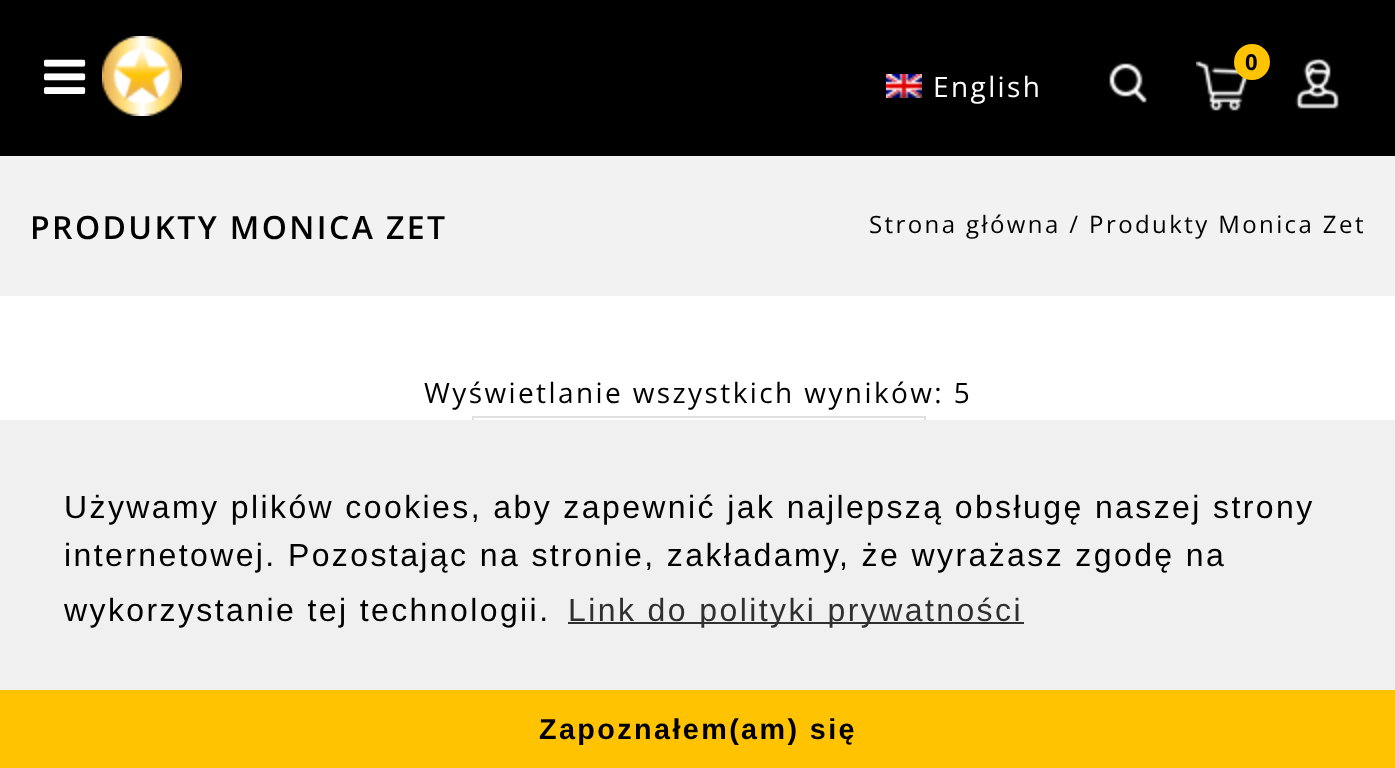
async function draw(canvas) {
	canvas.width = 1395;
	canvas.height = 768;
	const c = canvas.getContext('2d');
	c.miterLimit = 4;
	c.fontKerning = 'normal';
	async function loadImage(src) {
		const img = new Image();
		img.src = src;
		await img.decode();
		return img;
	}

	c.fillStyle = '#fff';
	c.fillRect(0, 0, 1395, 768);
	c.fillStyle = '#000';
	c.fillRect(0, 0, 1395, 156);
	c.drawImage(await loadImage('img1.png'), 44, 59, 42, 35);
	c.drawImage(await loadImage('img2.png'), 102, 36, 80, 80);
	c.drawImage(await loadImage('img3.png'), 886, 74, 36, 24);
	c.letterSpacing = '2.4px';
	c.font = '28px Open Sans';
	c.fillStyle = '#fff';
	c.fillText('English', 933, 97);
	c.drawImage(await loadImage('img4.png'), 1109, 63, 38, 40);
	c.drawImage(await loadImage('img5.png'), 1196, 61, 53, 50);
	c.fillStyle = '#ffc301';
	c.beginPath();
	c.arc(1252, 62, 18, 0, 2 * Math.PI);
	c.fill();
	c.font = 'bold 22px Open Sans';
	c.fillStyle = '#000';
	c.fillText('0', 1245, 70);
	c.drawImage(await loadImage('img6.png'), 1295, 58, 44, 51);
	c.fillStyle = '#f2f2f2';
	c.fillRect(0, 156, 1395, 140);
	c.font = '600 32px Open Sans';
	c.fillStyle = '#000';
	c.fillText('PRODUKTY MONICA ZET', 30, 239);
	c.font = '24px Open Sans';
	c.fillText('Strona główna / Produkty Monica Zet', 869, 233);
	c.font = '28px Open Sans';
	c.fillText('Wyświetlanie wszystkich wyników: 5', 424, 403);
	c.strokeStyle = '#e0e0e0';
	c.lineWidth = 2;
	c.strokeRect(473, 417, 452, 70);
	c.fillStyle = '#f0f0f0';
	c.fillRect(0, 420, 1395, 270);
	c.font = '32px Liberation Sans';
	c.fillStyle = '#000';
	for (const [text, x, y] of [
		['Używamy plików cookies, aby zapewnić jak najlepszą obsługę naszej strony', 64, 518],
		['internetowej. Pozostając na stronie, zakładamy, że wyrażasz zgodę na', 64, 566],
		['wykorzystanie tej technologii.', 64, 621],
	]) {
		c.fillText(text, x, y);
	}
	c.fillStyle = '#303030';
	c.fillRect(568, 622, 456, 2);
	c.fillText('Link do polityki prywatności', 568, 621);
	c.fillStyle = '#ffc301';
	c.fillRect(0, 690, 1395, 78);
	c.font = 'bold 28.75px Liberation Sans';
	c.fillStyle = '#000';
	c.fillText('Zapoznałem(am) się', 539, 739);
}

draw(document.querySelector('canvas'));
